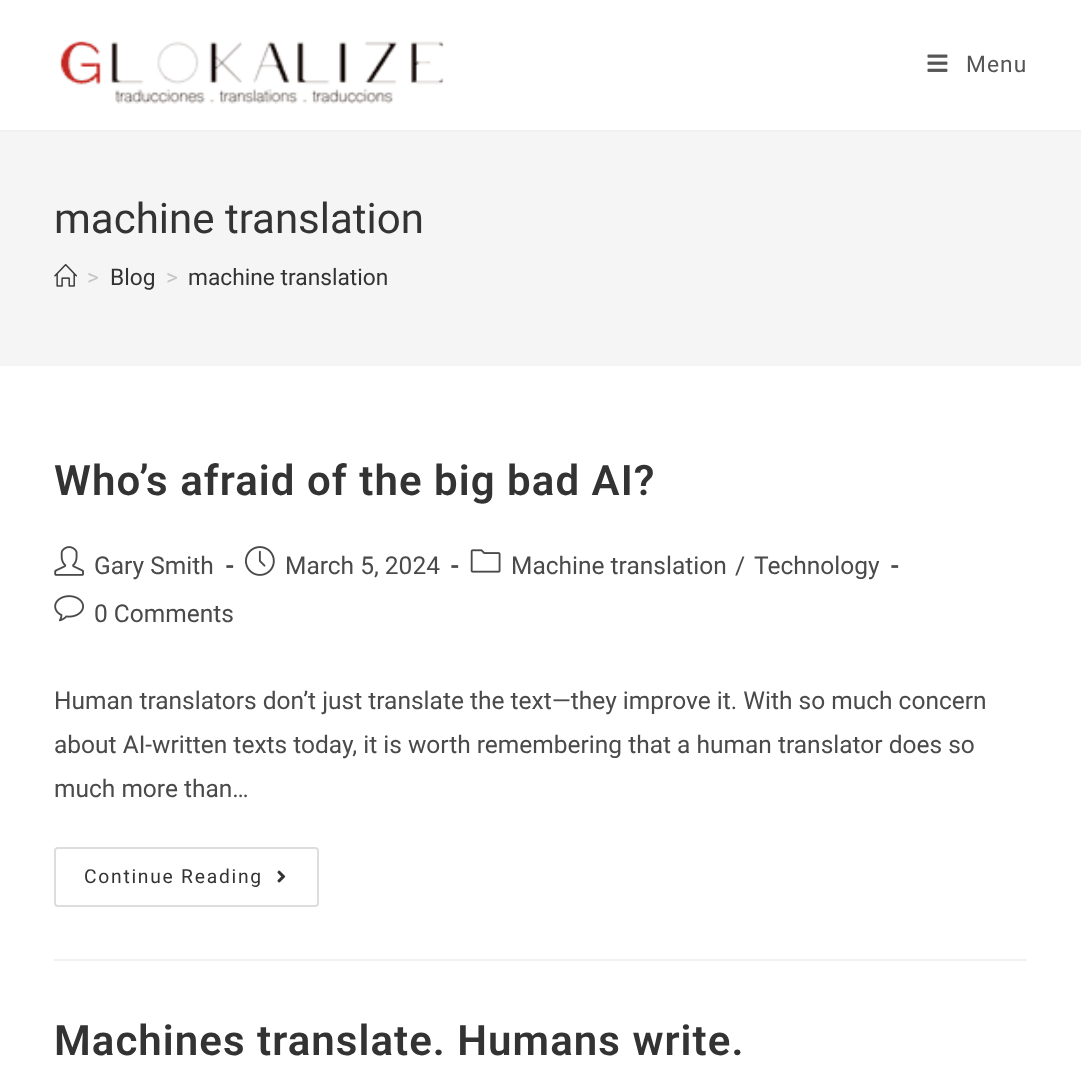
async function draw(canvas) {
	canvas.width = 1081;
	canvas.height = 1066;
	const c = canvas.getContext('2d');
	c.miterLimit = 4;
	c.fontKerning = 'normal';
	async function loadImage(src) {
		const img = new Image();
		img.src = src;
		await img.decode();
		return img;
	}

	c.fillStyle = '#fff';
	c.fillRect(0, 0, 1081, 1066);
	c.fillStyle = '#f1f1f1';
	c.fillRect(0, 130, 1081, 2);
	c.drawImage(await loadImage('img1.png'), 59, 40, 385, 64);
	c.drawImage(await loadImage('img2.png'), 927, 54, 21, 18);
	c.letterSpacing = '1.05px';
	c.font = '22.75px Roboto';
	c.fillStyle = '#555';
	c.fillText('Menu', 966, 72);
	c.fillStyle = '#f5f5f5';
	c.fillRect(0, 132, 1081, 234);
	c.letterSpacing = '0px';
	c.font = '42px Roboto';
	c.fillStyle = '#333';
	c.fillText('machine translation', 54, 233);
	c.drawImage(await loadImage('img3.png'), 54, 263, 23, 24);
	c.font = '22.75px Roboto';
	c.fillStyle = '#c6c6c6';
	c.fillText('>', 87, 285);
	c.fillStyle = '#333';
	c.fillText('Blog', 110, 285);
	c.fillStyle = '#c6c6c6';
	c.fillText('>', 166, 285);
	c.fillStyle = '#333';
	c.fillText('machine translation', 188, 285);
	c.fillStyle = '#f1f1f1';
	c.fillRect(54, 959, 973, 2);
	c.letterSpacing = '1.05px';
	c.font = '600 42px Roboto';
	c.fillStyle = '#333';
	c.fillText('Who’s afraid of the big bad AI?', 54, 495);
	c.drawImage(await loadImage('img4.png'), 54, 546, 30, 30);
	c.letterSpacing = '0px';
	c.font = '24.5px Roboto';
	c.fillStyle = '#4a4a4a';
	c.fillText('Gary Smith', 94, 574);
	c.font = 'bold 24.5px Roboto';
	c.fillText('-', 225, 574);
	c.drawImage(await loadImage('img5.png'), 245, 546, 30, 30);
	c.font = '24.5px Roboto';
	c.fillText('March 5, 2024', 285, 574);
	c.font = 'bold 24.5px Roboto';
	c.fillText('-', 450, 574);
	c.drawImage(await loadImage('img6.png'), 470, 549, 31, 24);
	c.font = '24.5px Roboto';
	for (const [text, x, y] of [
		['Machine translation', 511, 574],
		['/', 735, 574],
		['Technology', 754, 574],
	]) {
		c.fillText(text, x, y);
	}
	c.font = 'bold 24.5px Roboto';
	c.fillText('-', 890, 574);
	c.drawImage(await loadImage('img7.png'), 54, 595, 30, 27);
	c.font = '24.5px Roboto';
	for (const [text, x, y] of [
		['0 Comments', 94, 622],
		['Human translators don’t just translate the text—they improve it. With so much concern', 54, 709],
		['about AI-written texts today, it is worth remembering that a human translator does so', 54, 753],
		['much more than…', 54, 797],
	]) {
		c.fillText(text, x, y);
	}
	c.beginPath();
	c.roundRect(55, 848, 263, 58, 3);
	c.strokeStyle = '#ddd';
	c.lineWidth = 2;
	c.stroke();
	c.letterSpacing = '1.75px';
	c.font = '19.25px Roboto';
	c.fillStyle = '#333';
	c.fillText('Continue Reading', 84, 883);
	c.drawImage(await loadImage('img8.png'), 277, 870, 9, 13);
	c.letterSpacing = '1.05px';
	c.font = '600 42px Roboto';
	c.fillText('Machines translate. Humans write.', 54, 1055);
}

draw(document.querySelector('canvas'));
